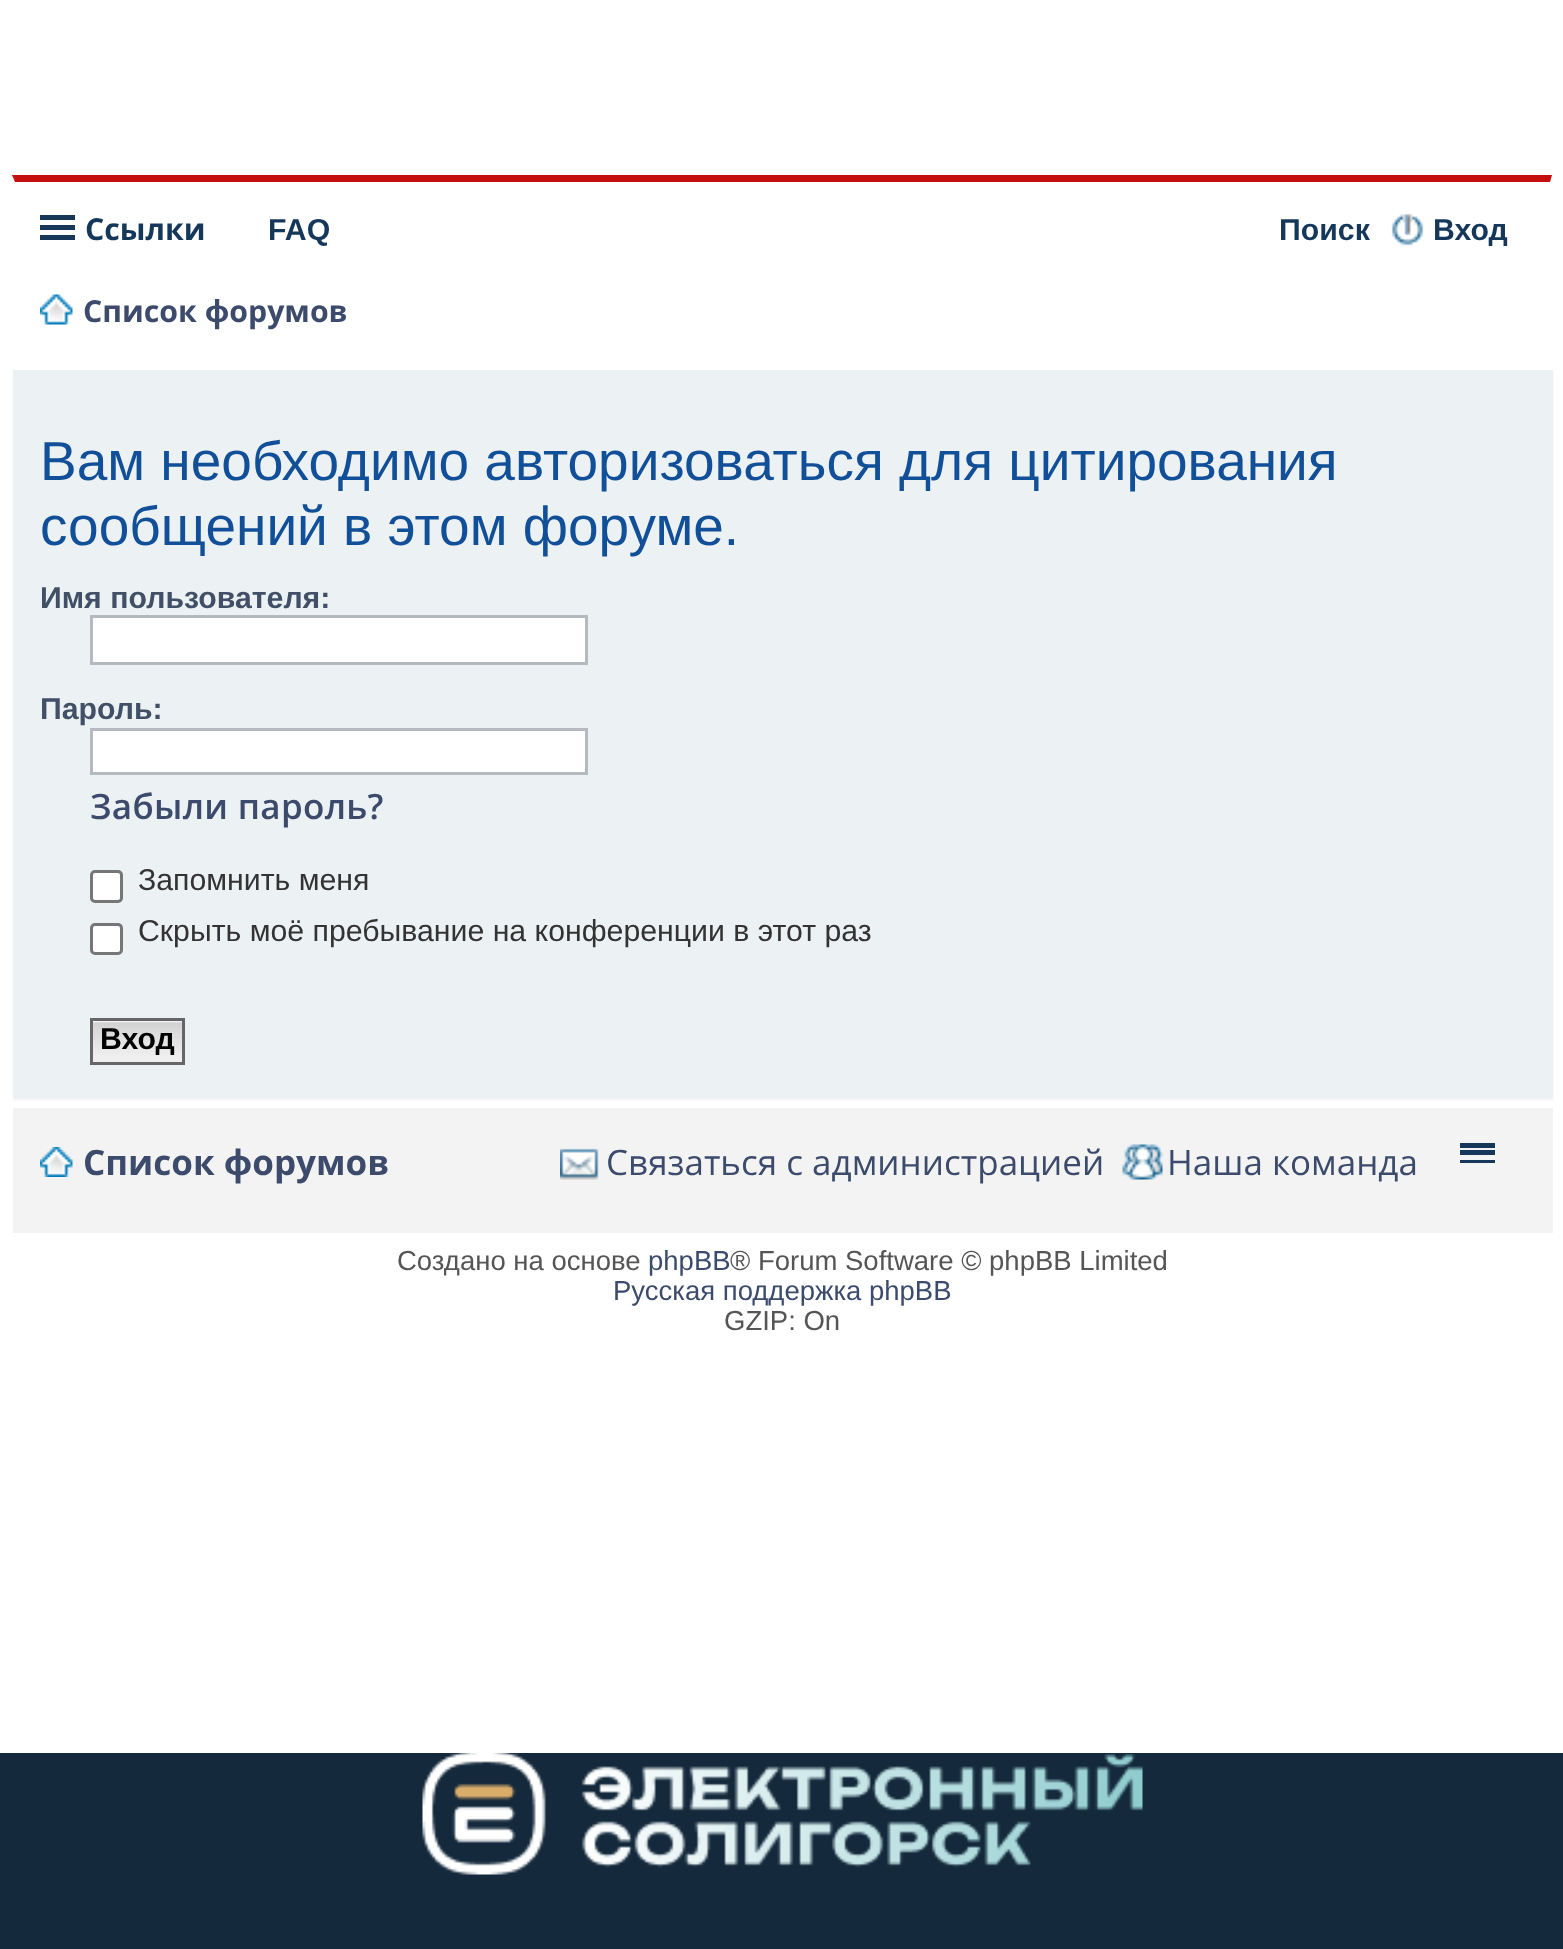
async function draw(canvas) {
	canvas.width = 1563;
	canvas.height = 1949;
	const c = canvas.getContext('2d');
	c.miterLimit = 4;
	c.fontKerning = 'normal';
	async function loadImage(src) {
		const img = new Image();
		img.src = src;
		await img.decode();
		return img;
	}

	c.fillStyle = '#fff';
	c.fillRect(0, 0, 1563, 1949);
	c.fillStyle = '#c50f0f';
	c.beginPath();
	c.moveTo(12, 175);
	c.lineTo(1552, 175);
	c.lineTo(1550, 182);
	c.lineTo(15, 182);
	c.closePath();
	c.fill();
	for (const [x, y, w, h, color] of [
		[40, 215, 35, 5, '#153759'],
		[40, 225, 35, 5, '#153759'],
		[40, 235, 35, 5, '#153759'],
	]) {
		c.fillStyle = color;
		c.fillRect(x, y, w, h);
	}
	c.font = 'bold 30.25px Open Sans';
	c.fillText('Ссылки', 85, 240);
	c.font = 'bold 30.25px Liberation Sans';
	c.fillText('FAQ', 268, 240);
	c.fillText('Поиск', 1279, 240);
	c.drawImage(await loadImage('img1.png'), 1391, 213, 33, 33);
	c.fillText('Вход', 1433, 240);
	c.drawImage(await loadImage('img2.png'), 40, 294, 33, 31);
	c.font = 'bold 30.25px Open Sans';
	c.fillStyle = '#3c4b6c';
	c.fillText('Список форумов', 83, 322);
	c.fillStyle = '#0000000d';
	c.filter = 'blur(1px)';
	c.beginPath();
	c.rect(13, 373, 1540, 727);
	c.fill();
	c.filter = 'none';
	c.fillStyle = '#ecf1f3';
	c.fillRect(13, 370, 1540, 728);
	c.font = '55px Liberation Sans';
	c.fillStyle = '#115098';
	c.fillText('Вам необходимо авторизоваться для цитирования', 40, 480);
	c.fillText('сообщений в этом форуме.', 40, 545);
	c.font = 'bold 30.25px Liberation Sans';
	c.fillStyle = '#425067';
	c.fillText('Имя пользователя:', 40, 608);
	c.fillStyle = '#fff';
	c.beginPath();
	c.rect(91.5, 616.5, 495, 47);
	c.fill();
	c.strokeStyle = '#b4bac0';
	c.lineWidth = 3;
	c.stroke();
	c.fillStyle = '#425067';
	c.fillText('Пароль:', 40, 719);
	c.fillStyle = '#fff';
	c.beginPath();
	c.rect(91.5, 729.5, 495, 44);
	c.fill();
	c.stroke();
	c.letterSpacing = '0.3px';
	c.font = '600 35px Open Sans';
	c.fillStyle = '#3c4b6c';
	c.fillText('Забыли пароль?', 90, 819);
	c.fillStyle = '#fff';
	c.beginPath();
	c.roundRect(91.5, 871.5, 30, 30, 3.5);
	c.fill();
	c.strokeStyle = '#767676';
	c.stroke();
	c.letterSpacing = '0px';
	c.font = '30.25px Liberation Sans';
	c.fillStyle = '#333';
	c.fillText('Запомнить меня', 138, 890);
	c.fillStyle = '#fff';
	c.beginPath();
	c.roundRect(91.5, 924.5, 30, 29, 3.5);
	c.fill();
	c.stroke();
	c.fillStyle = '#333';
	c.fillText('Скрыть моё пребывание на конференции в этот раз', 138, 941);
	c.drawImage(await loadImage('img3.png'), 93, 1021, 89, 41);
	c.strokeStyle = '#666';
	c.strokeRect(91.5, 1019.5, 92, 44);
	c.font = 'bold 30.25px Liberation Sans';
	c.fillStyle = '#000';
	c.fillText('Вход', 100, 1049);
	c.fillStyle = '#f3f3f3';
	c.fillRect(13, 1108, 1540, 125);
	c.drawImage(await loadImage('img4.png'), 40, 1147, 33, 30);
	c.font = 'bold 35px Open Sans';
	c.fillStyle = '#3c4b6c';
	c.fillText('Список форумов', 83, 1175);
	c.drawImage(await loadImage('img5.png'), 560, 1148, 39, 32);
	c.font = '35px Open Sans';
	c.fillText('Связаться с администрацией', 606, 1175);
	c.drawImage(await loadImage('img6.png'), 1122, 1144, 41, 36);
	c.fillText('Наша команда', 1167, 1175);
	for (const [x, y, w, h, color] of [
		[1460, 1143, 35, 5, '#153759'],
		[1460, 1150, 35, 5, '#153759'],
		[1460, 1160, 35, 3, '#153759'],
	]) {
		c.fillStyle = color;
		c.fillRect(x, y, w, h);
	}
	c.font = '27.5px Liberation Sans';
	c.fillStyle = '#555';
	c.fillText('Создано на основе', 397, 1270);
	c.fillStyle = '#3c4b6c';
	c.fillText('phpBB', 648, 1270);
	c.fillStyle = '#555';
	c.fillText('® Forum Software © phpBB Limited', 730, 1270);
	c.fillStyle = '#3c4b6c';
	c.fillText('Русская поддержка phpBB', 613, 1300);
	c.fillStyle = '#555';
	c.fillText('GZIP: On', 724, 1330);
	c.fillStyle = '#14293c';
	c.fillRect(0, 1753, 1563, 196);
	c.drawImage(await loadImage('img7.png'), 422, 1753, 721, 122);
}

draw(document.querySelector('canvas'));
